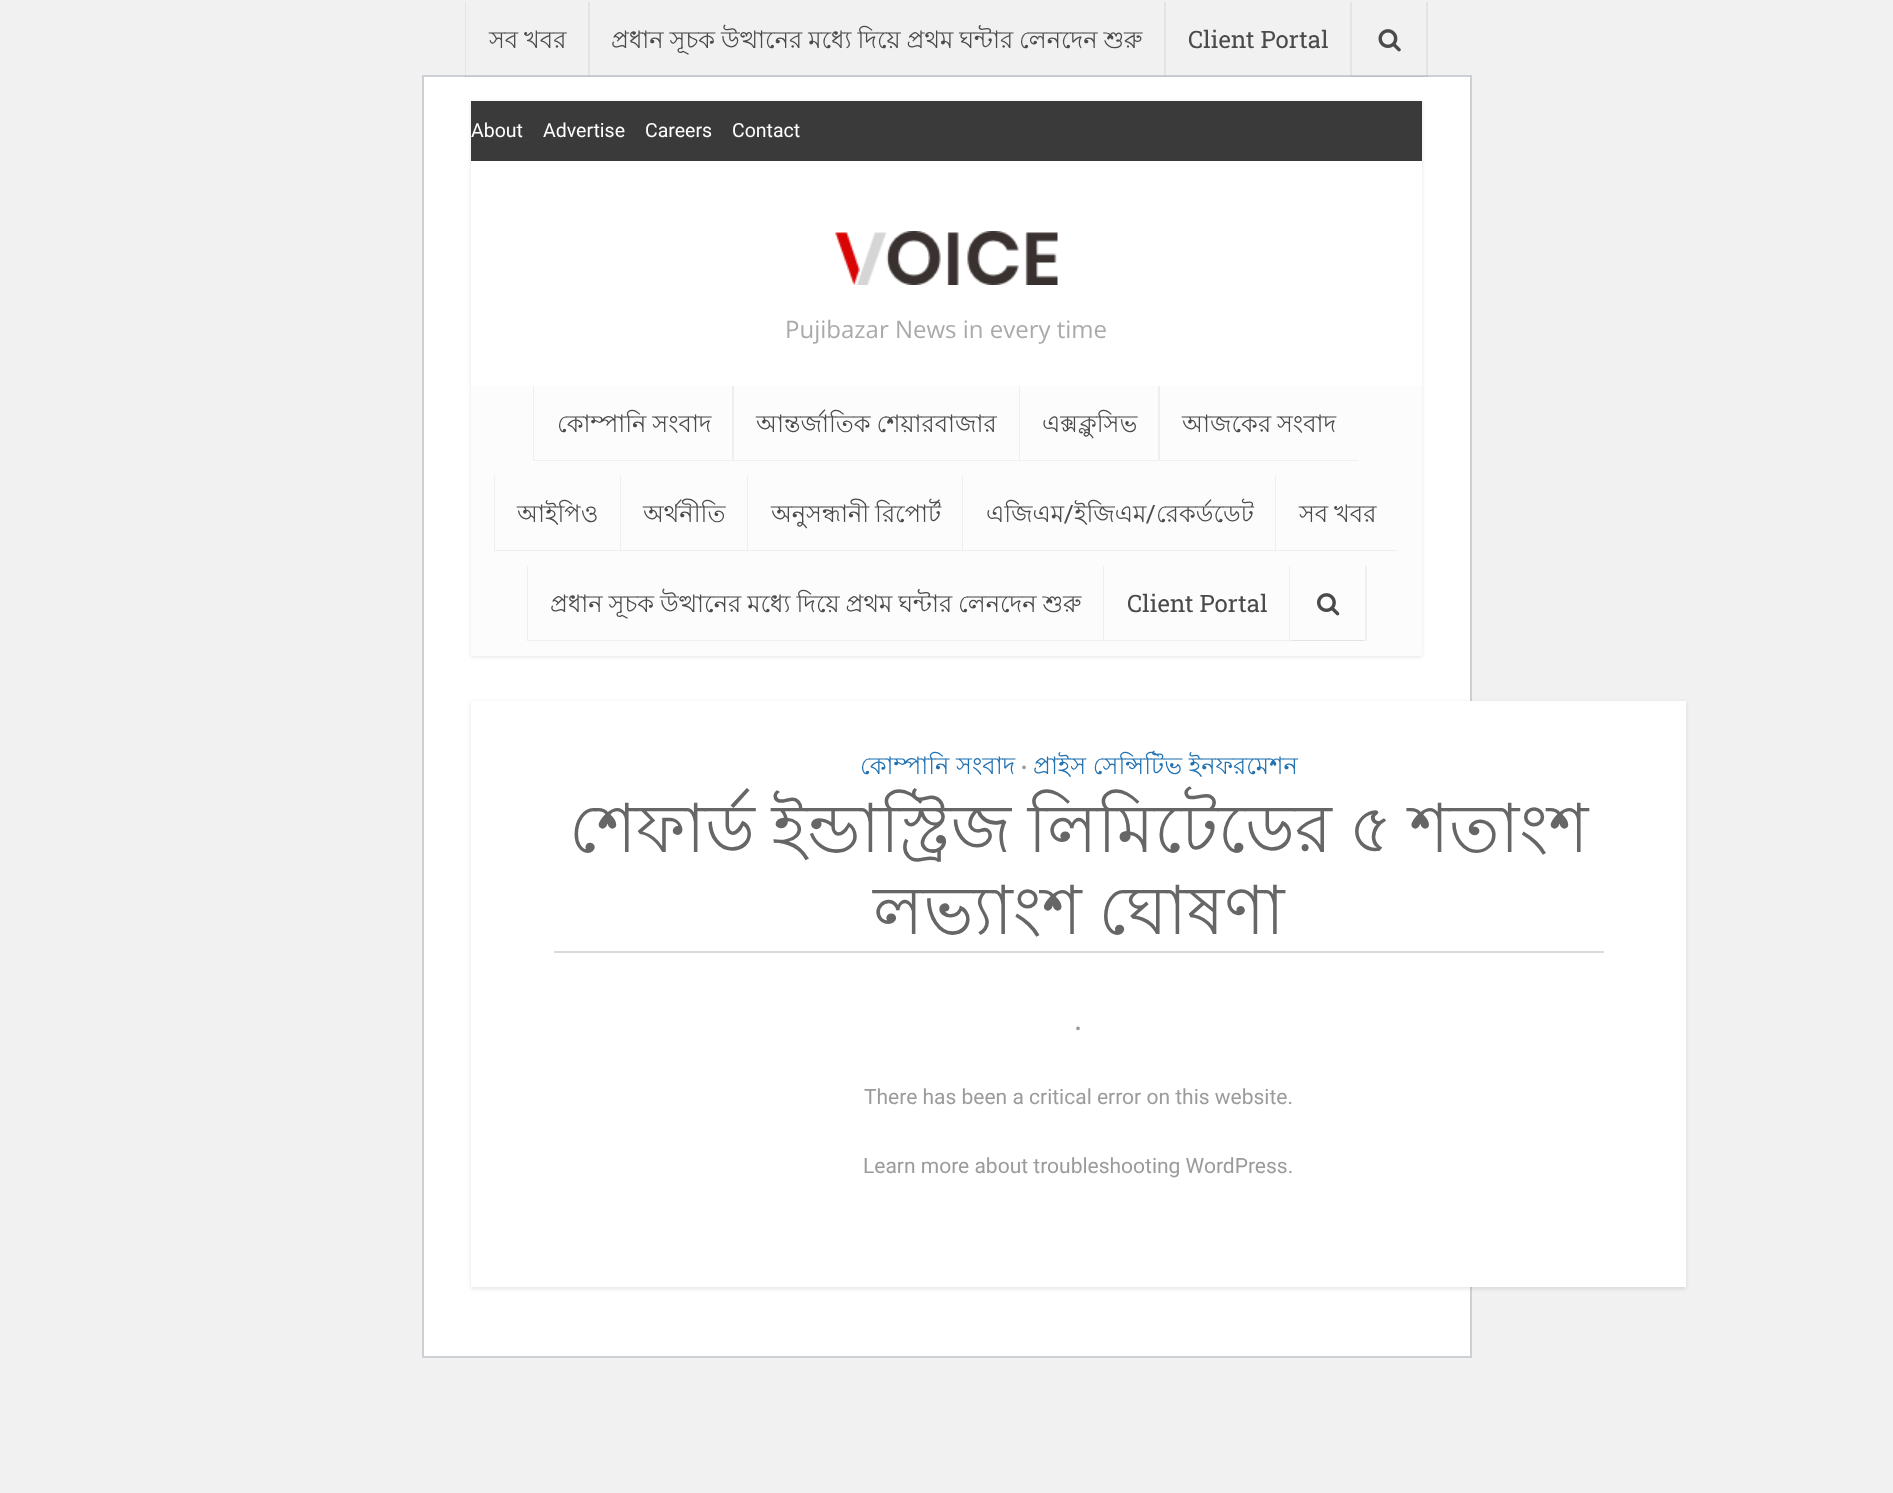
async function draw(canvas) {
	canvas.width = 1893;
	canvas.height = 1493;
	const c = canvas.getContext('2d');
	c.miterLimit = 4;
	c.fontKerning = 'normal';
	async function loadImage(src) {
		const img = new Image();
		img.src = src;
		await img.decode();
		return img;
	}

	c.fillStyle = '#f1f1f1';
	c.fillRect(0, 0, 1893, 1493);
	c.fillStyle = '#fff';
	c.beginPath();
	c.rect(423, 76, 1048, 1281);
	c.fill();
	c.strokeStyle = '#ccd0d4';
	c.lineWidth = 2;
	c.stroke();
	c.fillStyle = '#0000000d';
	c.beginPath();
	c.moveTo(465, 2);
	c.lineTo(465, 77);
	c.lineTo(588, 77);
	c.lineTo(588, 76);
	c.lineTo(466, 76);
	c.lineTo(466, 2);
	c.closePath();
	c.fill();
	c.wordSpacing = '-0.75px';
	c.font = '24px Lohit Bengali';
	c.fillStyle = '#4a4a4a';
	c.fillText('সব খবর', 489, 48);
	c.fillStyle = '#0000000d';
	c.beginPath();
	c.moveTo(588, 2);
	c.lineTo(588, 77);
	c.lineTo(1164, 77);
	c.lineTo(1164, 76);
	c.lineTo(590, 76);
	c.lineTo(590, 2);
	c.closePath();
	c.fill();
	c.fillStyle = '#4a4a4a';
	c.fillText('প্রধান সূচক উত্থানের মধ্যে দিয়ে প্রথম ঘন্টার লেনদেন শুরু', 611, 48);
	c.fillStyle = '#0000000d';
	c.beginPath();
	c.moveTo(1164, 2);
	c.lineTo(1164, 77);
	c.lineTo(1350, 77);
	c.lineTo(1350, 76);
	c.lineTo(1166, 76);
	c.lineTo(1166, 2);
	c.closePath();
	c.fill();
	c.wordSpacing = '0px';
	c.font = '24px Roboto Slab';
	c.fillStyle = '#4a4a4a';
	c.fillText('Client Portal', 1188, 48);
	c.fillStyle = '#0000000d';
	c.beginPath();
	c.moveTo(1353, 76);
	c.lineTo(1353, 77);
	c.lineTo(1428, 77);
	c.lineTo(1428, 2);
	c.lineTo(1426, 2);
	c.lineTo(1426, 76);
	c.closePath();
	c.fill();
	c.beginPath();
	c.moveTo(1350, 2);
	c.lineTo(1350, 77);
	c.lineTo(1425, 77);
	c.lineTo(1425, 76);
	c.lineTo(1352, 76);
	c.lineTo(1352, 2);
	c.closePath();
	c.fill();
	c.drawImage(await loadImage('img1.png'), 1378, 29, 23, 23);
	c.fillStyle = '#0000001a';
	c.filter = 'blur(2px)';
	c.beginPath();
	c.rect(471, 102, 951, 555);
	c.fill();
	c.filter = 'none';
	c.fillStyle = '#fff';
	c.fillRect(471, 161, 951, 225);
	c.fillStyle = '#3a3a3a';
	c.fillRect(471, 101, 951, 60);
	c.font = '19.5px Roboto';
	c.fillStyle = '#fff';
	for (const [text, x, y] of [
		['About', 471, 137],
		['Advertise', 543, 137],
		['Careers', 645, 137],
		['Contact', 732, 137],
	]) {
		c.fillText(text, x, y);
	}
	c.drawImage(await loadImage('img2.png'), 835, 231, 223, 54);
	c.font = '24px Open Sans';
	c.fillStyle = '#aaa';
	c.fillText('Pujibazar News in every time', 785, 338);
	c.fillStyle = '#fcfcfc';
	c.fillRect(471, 386, 951, 270);
	c.fillStyle = '#efefef';
	c.beginPath();
	c.moveTo(533, 386);
	c.lineTo(533, 461);
	c.lineTo(732, 461);
	c.lineTo(732, 460);
	c.lineTo(534, 460);
	c.lineTo(534, 386);
	c.closePath();
	c.fill();
	c.wordSpacing = '-0.75px';
	c.font = '24px Lohit Bengali';
	c.fillStyle = '#4a4a4a';
	c.fillText('কোম্পানি সংবাদ', 557, 432);
	c.fillStyle = '#efefef';
	c.beginPath();
	c.moveTo(732, 386);
	c.lineTo(732, 461);
	c.lineTo(1019, 461);
	c.lineTo(1019, 460);
	c.lineTo(734, 460);
	c.lineTo(734, 386);
	c.closePath();
	c.fill();
	c.fillStyle = '#4a4a4a';
	c.fillText('আন্তর্জাতিক শেয়ারবাজার', 756, 432);
	c.fillStyle = '#efefef';
	c.beginPath();
	c.moveTo(1019, 386);
	c.lineTo(1019, 461);
	c.lineTo(1158, 461);
	c.lineTo(1158, 460);
	c.lineTo(1020, 460);
	c.lineTo(1020, 386);
	c.closePath();
	c.fill();
	c.wordSpacing = '0px';
	c.fillStyle = '#4a4a4a';
	c.fillText('এক্সক্লুসিভ', 1042, 432);
	c.fillStyle = '#efefef';
	c.beginPath();
	c.moveTo(1158, 386);
	c.lineTo(1158, 461);
	c.lineTo(1358, 461);
	c.lineTo(1358, 460);
	c.lineTo(1160, 460);
	c.lineTo(1160, 386);
	c.closePath();
	c.fill();
	c.wordSpacing = '-0.75px';
	c.fillStyle = '#4a4a4a';
	c.fillText('আজকের সংবাদ', 1182, 432);
	c.fillStyle = '#efefef';
	c.beginPath();
	c.moveTo(494, 476);
	c.lineTo(494, 551);
	c.lineTo(620, 551);
	c.lineTo(620, 550);
	c.lineTo(495, 550);
	c.lineTo(495, 476);
	c.closePath();
	c.fill();
	c.wordSpacing = '0px';
	c.fillStyle = '#4a4a4a';
	c.fillText('আইপিও', 517, 522);
	c.fillStyle = '#efefef';
	c.beginPath();
	c.moveTo(620, 476);
	c.lineTo(620, 551);
	c.lineTo(747, 551);
	c.lineTo(747, 550);
	c.lineTo(621, 550);
	c.lineTo(621, 476);
	c.closePath();
	c.fill();
	c.fillStyle = '#4a4a4a';
	c.fillText('অর্থনীতি', 643, 522);
	c.fillStyle = '#efefef';
	c.beginPath();
	c.moveTo(747, 476);
	c.lineTo(747, 551);
	c.lineTo(962, 551);
	c.lineTo(962, 550);
	c.lineTo(748, 550);
	c.lineTo(748, 476);
	c.closePath();
	c.fill();
	c.wordSpacing = '-0.75px';
	c.fillStyle = '#4a4a4a';
	c.fillText('অনুসন্ধানী রিপোর্ট', 771, 522);
	c.fillStyle = '#efefef';
	c.beginPath();
	c.moveTo(962, 476);
	c.lineTo(962, 551);
	c.lineTo(1275, 551);
	c.lineTo(1275, 550);
	c.lineTo(963, 550);
	c.lineTo(963, 476);
	c.closePath();
	c.fill();
	c.wordSpacing = '0px';
	c.fillStyle = '#4a4a4a';
	c.fillText('এজিএম', 986, 522);
	c.font = '24px Roboto Slab';
	c.fillText('/', 1064, 522);
	c.font = '24px Lohit Bengali';
	c.fillText('ইজিএম', 1074, 522);
	c.font = '24px Roboto Slab';
	c.fillText('/', 1146, 522);
	c.font = '24px Lohit Bengali';
	c.fillText('রেকর্ডডেট', 1156, 522);
	c.fillStyle = '#efefef';
	c.beginPath();
	c.moveTo(1275, 476);
	c.lineTo(1275, 551);
	c.lineTo(1397, 551);
	c.lineTo(1397, 550);
	c.lineTo(1276, 550);
	c.lineTo(1276, 476);
	c.closePath();
	c.fill();
	c.wordSpacing = '-0.75px';
	c.fillStyle = '#4a4a4a';
	c.fillText('সব খবর', 1299, 522);
	c.fillStyle = '#efefef';
	c.beginPath();
	c.moveTo(527, 566);
	c.lineTo(527, 641);
	c.lineTo(1103, 641);
	c.lineTo(1103, 640);
	c.lineTo(528, 640);
	c.lineTo(528, 566);
	c.closePath();
	c.fill();
	c.fillStyle = '#4a4a4a';
	c.fillText('প্রধান সূচক উত্থানের মধ্যে দিয়ে প্রথম ঘন্টার লেনদেন শুরু', 550, 612);
	c.fillStyle = '#efefef';
	c.beginPath();
	c.moveTo(1103, 566);
	c.lineTo(1103, 641);
	c.lineTo(1289, 641);
	c.lineTo(1289, 640);
	c.lineTo(1104, 640);
	c.lineTo(1104, 566);
	c.closePath();
	c.fill();
	c.wordSpacing = '0px';
	c.font = '24px Roboto Slab';
	c.fillStyle = '#4a4a4a';
	c.fillText('Client Portal', 1127, 612);
	c.fillStyle = '#efefef';
	c.beginPath();
	c.moveTo(1292, 640);
	c.lineTo(1292, 641);
	c.lineTo(1367, 641);
	c.lineTo(1367, 566);
	c.lineTo(1365, 566);
	c.lineTo(1365, 640);
	c.closePath();
	c.fill();
	c.fillStyle = '#0000000d';
	c.beginPath();
	c.moveTo(1289, 566);
	c.lineTo(1289, 641);
	c.lineTo(1364, 641);
	c.lineTo(1364, 640);
	c.lineTo(1290, 640);
	c.lineTo(1290, 566);
	c.closePath();
	c.fill();
	c.drawImage(await loadImage('img3.png'), 1317, 593, 23, 23);
	c.fillStyle = '#0000001a';
	c.filter = 'blur(2px)';
	c.beginPath();
	c.rect(471, 702, 1215, 587);
	c.fill();
	c.filter = 'none';
	c.fillStyle = '#fff';
	c.fillRect(471, 701, 1215, 586);
	c.font = '24px Lohit Bengali';
	c.fillStyle = '#2271b1';
	c.fillText('কোম্পানি সংবাদ', 860, 774);
	c.font = '18px Roboto';
	c.fillStyle = '#9b9b9b';
	c.fillText('•', 1021, 774);
	c.font = '24px Lohit Bengali';
	c.fillStyle = '#2271b1';
	c.fillText('প্রাইস সেন্সিটিভ ইনফরমেশন', 1033, 774);
	c.fillStyle = '#dadada';
	c.fillRect(554, 951, 1050, 2);
	c.wordSpacing = '-2px';
	c.font = '67.5px Lohit Bengali';
	c.fillStyle = '#666';
	c.fillText('শেফার্ড ইন্ডাস্ট্রিজ লিমিটেডের ৫ শতাংশ', 569, 852);
	c.fillText('লভ্যাংশ ঘোষণা', 873, 934);
	c.wordSpacing = '0px';
	c.font = '18px Roboto';
	c.fillStyle = '#9b9b9b';
	c.fillText('•', 1075, 1035);
	c.font = '21px Roboto';
	c.fillText('There has been a critical error on this website.', 864, 1104);
	c.fillText('Learn more about troubleshooting WordPress.', 863, 1173);
}

draw(document.querySelector('canvas'));
